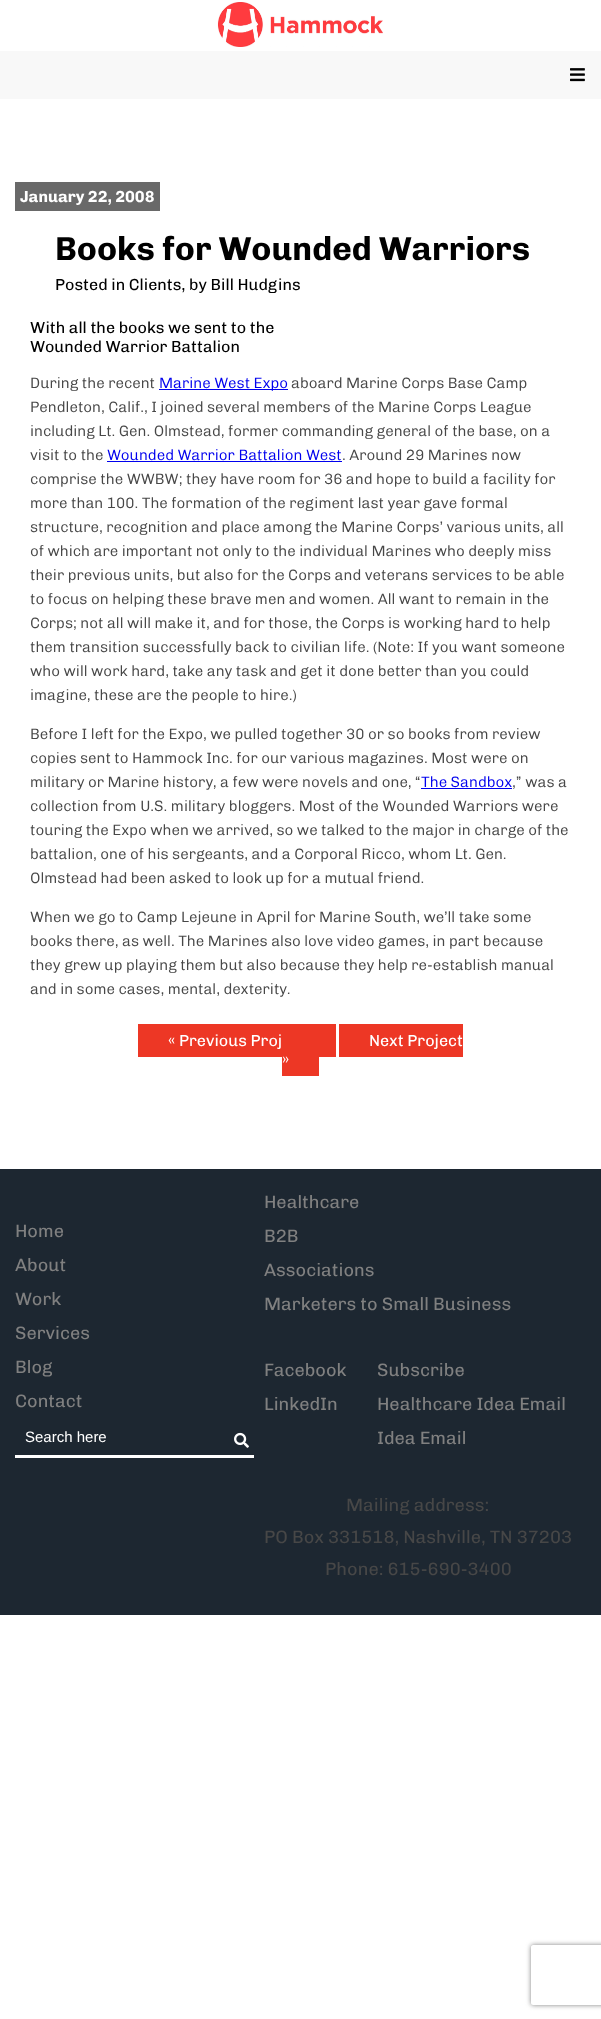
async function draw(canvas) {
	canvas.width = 601;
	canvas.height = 2019;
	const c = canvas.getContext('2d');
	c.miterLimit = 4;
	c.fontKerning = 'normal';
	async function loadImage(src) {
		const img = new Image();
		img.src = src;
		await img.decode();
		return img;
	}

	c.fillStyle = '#fff';
	c.fillRect(0, 0, 601, 2019);
	c.drawImage(await loadImage('img1.png'), 217, 2, 166, 45);
	c.fillStyle = '#f8f8f8';
	c.fillRect(0, 51, 601, 48);
	c.drawImage(await loadImage('img2.png'), 570, 68, 15, 14);
	c.fillStyle = '#696969';
	c.fillRect(15, 182, 145, 29);
	c.font = 'bold 16px Chivo';
	c.fillStyle = '#fff';
	c.fillText('January 22, 2008', 20, 202);
	c.font = 'bold 33.3px Chivo';
	c.fillStyle = '#000';
	c.fillText('Books for Wounded Warriors', 55, 260);
	c.font = '16px Chivo';
	for (const [text, x, y] of [
		['Posted in Clients, by Bill Hudgins', 55, 290],
		['With all the books we sent to the', 30, 333],
		['Wounded Warrior Battalion', 30, 352],
	]) {
		c.fillText(text, x, y);
	}
	c.font = '300 15px Chivo';
	c.fillStyle = '#474747';
	c.fillText('During the recent', 30, 388);
	c.fillStyle = '#00e';
	c.fillRect(159, 389, 129, 1);
	c.fillText('Marine West Expo', 159, 388);
	c.fillStyle = '#474747';
	for (const [text, x, y] of [
		['aboard Marine Corps Base Camp', 291, 388],
		['Pendleton, Calif., I joined several members of the Marine Corps League', 30, 412],
		['including Lt. Gen. Olmstead, former commanding general of the base, on a', 30, 436],
		['visit to the', 30, 460],
	]) {
		c.fillText(text, x, y);
	}
	c.fillStyle = '#00e';
	c.fillText('Wounded Warrior Battalion West', 107, 460);
	c.fillRect(107, 461, 235, 1);
	c.fillStyle = '#474747';
	for (const [text, x, y] of [
		['. Around 29 Marines now', 342, 460],
		['comprise the WWBW; they have room for 36 and hope to build a facility for', 30, 484],
		['more than 100. The formation of the regiment last year gave formal', 30, 508],
		['structure, recognition and place among the Marine Corps’ various units, all', 30, 532],
		['of which are important not only to the individual Marines who deeply miss', 30, 556],
		['their previous units, but also for the Corps and veterans services to be able', 30, 580],
		['to focus on helping these brave men and women. All want to remain in the', 30, 604],
		['Corps; not all will make it, and for those, the Corps is working hard to help', 30, 628],
		['them transition successfully back to civilian life. (Note: If you want someone', 30, 652],
		['who will work hard, take any task and get it done better than you could', 30, 676],
		['imagine, these are the people to hire.)', 30, 700],
		['Before I left for the Expo, we pulled together 30 or so books from review', 30, 739],
		['copies sent to Hammock Inc. for our various magazines. Most were on', 30, 763],
		['military or Marine history, a few were novels and one, “', 30, 787],
	]) {
		c.fillText(text, x, y);
	}
	c.fillStyle = '#00e';
	c.fillText('The Sandbox', 421, 787);
	c.fillRect(421, 788, 91, 1);
	c.fillStyle = '#474747';
	for (const [text, x, y] of [
		[',” was a', 512, 787],
		['collection from U.S. military bloggers. Most of the Wounded Warriors were', 30, 811],
		['touring the Expo when we arrived, so we talked to the major in charge of the', 30, 835],
		['battalion, one of his sergeants, and a Corporal Ricco, whom Lt. Gen.', 30, 859],
		['Olmstead had been asked to look up for a mutual friend.', 30, 883],
		['When we go to Camp Lejeune in April for Marine South, we’ll take some', 30, 922],
		['books there, as well. The Marines also love video games, in part because', 30, 946],
		['they grew up playing them but also because they help re-establish manual', 30, 970],
		['and in some cases, mental, dexterity.', 30, 994],
	]) {
		c.fillText(text, x, y);
	}
	c.fillStyle = '#ed3725';
	c.fillRect(138, 1024, 198, 33);
	c.font = '16px Chivo';
	c.fillStyle = '#fff';
	c.fillText('« Previous Proj', 168, 1046);
	c.fillStyle = '#ed3725';
	c.fillRect(339, 1024, 124, 33);
	c.fillStyle = '#fff';
	c.fillText('Next Project', 369, 1046);
	c.fillStyle = '#ed3725';
	c.fillRect(282, 1057, 37, 19);
	c.fillStyle = '#fff';
	c.fillText('»', 282, 1065);
	c.fillStyle = '#1d2731';
	c.fillRect(0, 1169, 601, 446);
	c.font = '18px Chivo';
	c.fillStyle = '#808080';
	for (const [text, x, y] of [
		['Home', 15, 1237],
		['About', 15, 1271],
		['Work', 15, 1305],
		['Services', 15, 1339],
		['Blog', 15, 1373],
		['Contact', 15, 1407],
	]) {
		c.fillText(text, x, y);
	}
	c.fillStyle = '#fff';
	c.fillRect(15, 1455, 239, 3);
	c.font = '15px Liberation Sans';
	c.fillText('Search here', 25, 1442);
	c.drawImage(await loadImage('img3.png'), 234, 1432, 15, 16);
	c.font = '18px Chivo';
	c.fillStyle = '#808080';
	for (const [text, x, y] of [
		['Healthcare', 264, 1208],
		['B2B', 264, 1242],
		['Associations', 264, 1276],
		['Marketers to Small Business', 264, 1310],
		['Facebook', 264, 1376],
		['LinkedIn', 264, 1410],
		['Subscribe', 377, 1376],
		['Healthcare Idea Email', 377, 1410],
		['Idea Email', 377, 1444],
	]) {
		c.fillText(text, x, y);
	}
	c.fillStyle = '#474747';
	for (const [text, x, y] of [
		['Mailing address:', 346, 1511],
		['PO Box 331518, Nashville, TN 37203', 264, 1543],
		['Phone: 615-690-3400', 325, 1575],
	]) {
		c.fillText(text, x, y);
	}
	c.save();
	c.beginPath();
	c.moveTo(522, 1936);
	c.lineTo(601, 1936);
	c.lineTo(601, 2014);
	c.lineTo(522, 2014);
	c.closePath();
	c.moveTo(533, 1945);
	c.lineTo(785, 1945);
	c.bezierCurveTo(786, 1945, 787, 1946, 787, 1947);
	c.lineTo(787, 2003);
	c.bezierCurveTo(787, 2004, 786, 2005, 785, 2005);
	c.lineTo(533, 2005);
	c.bezierCurveTo(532, 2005, 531, 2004, 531, 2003);
	c.lineTo(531, 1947);
	c.bezierCurveTo(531, 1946, 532, 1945, 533, 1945);
	c.closePath();
	c.clip('evenodd');
	c.fillStyle = '#808080';
	c.filter = 'blur(2.5px)';
	c.beginPath();
	c.roundRect(531, 1945, 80, 60, 2);
	c.fill();
	c.filter = 'none';
	c.restore();
}

draw(document.querySelector('canvas'));
